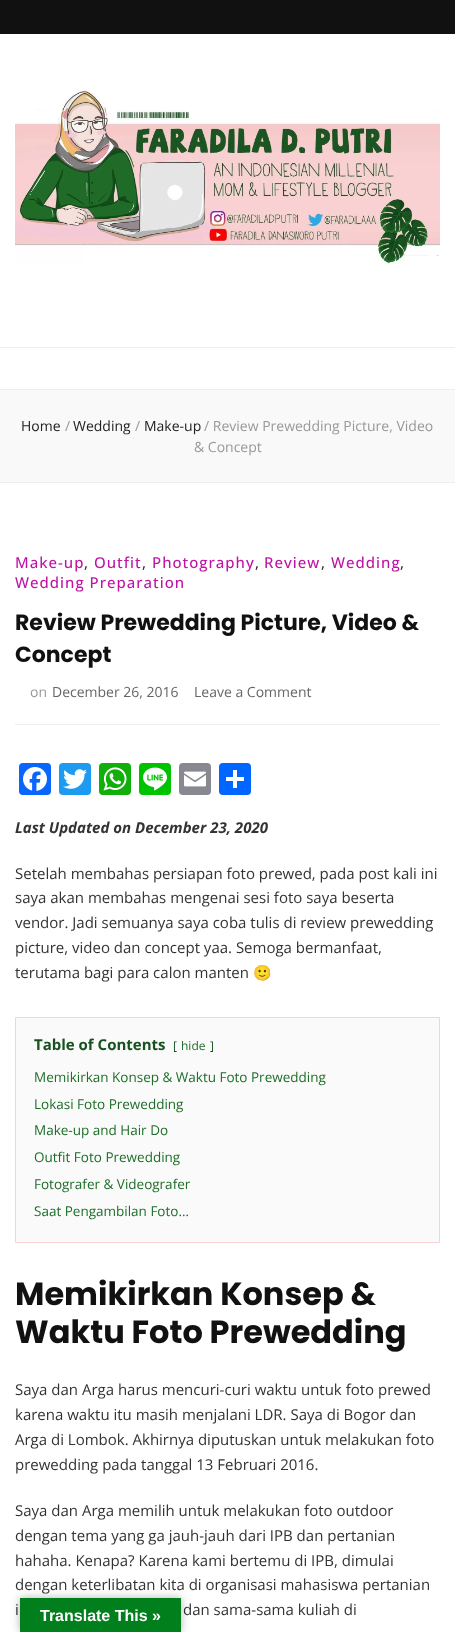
async function draw(canvas) {
	canvas.width = 455;
	canvas.height = 1632;
	const c = canvas.getContext('2d');
	c.miterLimit = 4;
	c.fontKerning = 'normal';
	async function loadImage(src) {
		const img = new Image();
		img.src = src;
		await img.decode();
		return img;
	}

	c.fillStyle = '#fff';
	c.fillRect(0, 0, 455, 1632);
	c.fillStyle = '#111';
	c.fillRect(0, 0, 455, 34);
	c.drawImage(await loadImage('img1.png'), 15, 88, 425, 176);
	for (const [x, y, w, h, color] of [
		[0, 347, 455, 1, '#eee'],
		[0, 389, 455, 1, '#eee'],
		[0, 390, 455, 92, '#f9f9f9'],
		[0, 482, 455, 1, '#eee'],
	]) {
		c.fillStyle = color;
		c.fillRect(x, y, w, h);
	}
	c.font = '14px Open Sans';
	c.fillStyle = '#222';
	c.fillText('Home', 21, 431);
	c.fillStyle = '#999';
	c.fillText('/', 65, 431);
	c.fillStyle = '#222';
	c.fillText('Wedding', 73, 431);
	c.fillStyle = '#999';
	c.fillText('/', 135, 431);
	c.fillStyle = '#222';
	c.fillText('Make-up', 144, 431);
	c.fillStyle = '#999';
	c.fillText('/ Review Prewedding Picture, Video', 204, 431);
	c.fillText('& Concept', 194, 452);
	c.fillStyle = '#eee';
	c.fillRect(15, 724, 425, 1);
	c.letterSpacing = '1px';
	c.font = '500 15px Open Sans';
	c.fillStyle = '#bf13a3';
	c.fillText('Make-up', 15, 568);
	c.fillStyle = '#333';
	c.fillText(',', 84, 568);
	c.fillStyle = '#bf13a3';
	c.fillText('Outfit', 94, 568);
	c.fillStyle = '#333';
	c.fillText(',', 142, 568);
	c.fillStyle = '#bf13a3';
	c.fillText('Photography', 152, 568);
	c.fillStyle = '#333';
	c.fillText(',', 255, 568);
	c.fillStyle = '#bf13a3';
	c.fillText('Review', 264, 568);
	c.fillStyle = '#333';
	c.fillText(',', 321, 568);
	c.fillStyle = '#bf13a3';
	c.fillText('Wedding', 331, 568);
	c.fillStyle = '#333';
	c.fillText(',', 400, 568);
	c.fillStyle = '#bf13a3';
	c.fillText('Wedding Preparation', 15, 588);
	c.letterSpacing = '0px';
	c.font = 'bold 22px Poppins';
	c.fillStyle = '#111';
	c.fillText('Review Prewedding Picture, Video &', 15, 630);
	c.fillText('Concept', 15, 662);
	c.font = '14px Open Sans';
	c.fillStyle = '#999';
	c.fillText('on', 30, 697);
	c.fillStyle = '#666';
	c.fillText('December 26, 2016', 52, 697);
	c.fillText('Leave a Comment', 194, 697);
	c.fillStyle = '#0866ff';
	c.beginPath();
	c.roundRect(19, 763, 32, 32, 4);
	c.fill();
	c.drawImage(await loadImage('img2.png'), 23, 767, 24, 24);
	c.fillStyle = '#1d9bf0';
	c.beginPath();
	c.roundRect(59, 763, 32, 32, 4);
	c.fill();
	c.drawImage(await loadImage('img3.png'), 63, 769, 24, 20);
	c.fillStyle = '#12af0a';
	c.beginPath();
	c.roundRect(99, 763, 32, 32, 4);
	c.fill();
	c.drawImage(await loadImage('img4.png'), 103, 767, 24, 24);
	c.fillStyle = '#00c300';
	c.beginPath();
	c.roundRect(139, 763, 32, 32, 4);
	c.fill();
	c.drawImage(await loadImage('img5.png'), 143, 767, 24, 24);
	c.fillStyle = '#888990';
	c.beginPath();
	c.roundRect(179, 763, 32, 32, 4);
	c.fill();
	c.drawImage(await loadImage('img6.png'), 184, 771, 22, 16);
	c.fillStyle = '#0166ff';
	c.beginPath();
	c.roundRect(219, 763, 32, 32, 4);
	c.fill();
	c.fillStyle = '#fff';
	c.fillRect(233, 770, 4, 18);
	c.fillRect(226, 777, 18, 4);
	c.font = 'italic bold 15px Open Sans';
	c.fillStyle = '#333';
	c.fillText('Last Updated on December 23, 2020', 15, 833);
	c.font = '15px Open Sans';
	for (const [text, x, y] of [
		['Setelah membahas persiapan foto prewed, pada post kali ini', 15, 879],
		['saya akan membahas mengenai sesi foto saya beserta', 15, 903],
		['vendor. Jadi semuanya saya coba tulis di review prewedding', 15, 928],
		['picture, video dan concept yaa. Semoga bermanfaat,', 15, 953],
		['terutama bagi para calon manten', 15, 978],
	]) {
		c.fillText(text, x, y);
	}
	c.font = '15px Noto Color Emoji';
	c.fillText('🙂', 253, 978);
	c.fillStyle = '#fafafa';
	c.beginPath();
	c.rect(15.5, 1017.5, 424, 225);
	c.fill();
	c.strokeStyle = '#f9d2d3';
	c.stroke();
	c.font = 'bold 15px Open Sans';
	c.fillStyle = '#17511f';
	c.fillText('Table of Contents', 34, 1050);
	c.font = '12px Open Sans';
	c.fillText('[', 173, 1050);
	c.fillStyle = '#1e6e29';
	c.fillText('hide', 181, 1050);
	c.fillStyle = '#17511f';
	c.fillText(']', 210, 1050);
	c.font = '13.5px Open Sans';
	c.fillStyle = '#1e6e29';
	for (const [text, x, y] of [
		['Memikirkan Konsep & Waktu Foto Prewedding', 34, 1082],
		['Lokasi Foto Prewedding', 34, 1109],
		['Make-up and Hair Do', 34, 1135],
		['Outfit Foto Prewedding', 34, 1162],
		['Fotografer & Videografer', 34, 1189],
		['Saat Pengambilan Foto…', 34, 1216],
	]) {
		c.fillText(text, x, y);
	}
	c.font = 'bold 32px Poppins';
	c.fillStyle = '#111';
	c.fillText('Memikirkan Konsep &', 15, 1305);
	c.fillText('Waktu Foto Prewedding', 15, 1343);
	c.font = '15px Open Sans';
	c.fillStyle = '#333';
	for (const [text, x, y] of [
		['Saya dan Arga harus mencuri-curi waktu untuk foto prewed', 15, 1395],
		['karena waktu itu masih menjalani LDR. Saya di Bogor dan', 15, 1420],
		['Arga di Lombok. Akhirnya diputuskan untuk melakukan foto', 15, 1445],
		['prewedding pada tanggal 13 Februari 2016.', 15, 1470],
		['Saya dan Arga memilih untuk melakukan foto outdoor', 15, 1516],
		['dengan tema yang ga jauh-jauh dari IPB dan pertanian', 15, 1541],
		['hahaha. Kenapa? Karena kami bertemu di IPB, dimulai', 15, 1566],
		['dengan keterlibatan kita di organisasi mahasiswa pertanian', 15, 1590],
		['i', 15, 1615],
		['dan sama-sama kuliah di', 183, 1615],
	]) {
		c.fillText(text, x, y);
	}
	c.fillStyle = '#0000004d';
	c.filter = 'blur(4.5px)';
	c.beginPath();
	c.rect(20, 1598, 161, 34);
	c.fill();
	c.filter = 'none';
	c.fillStyle = '#017f1c';
	c.fillRect(20, 1598, 161, 34);
	c.font = 'bold 16px Liberation Sans';
	c.fillStyle = '#fff';
	c.fillText('Translate This »', 40, 1621);
}

draw(document.querySelector('canvas'));
